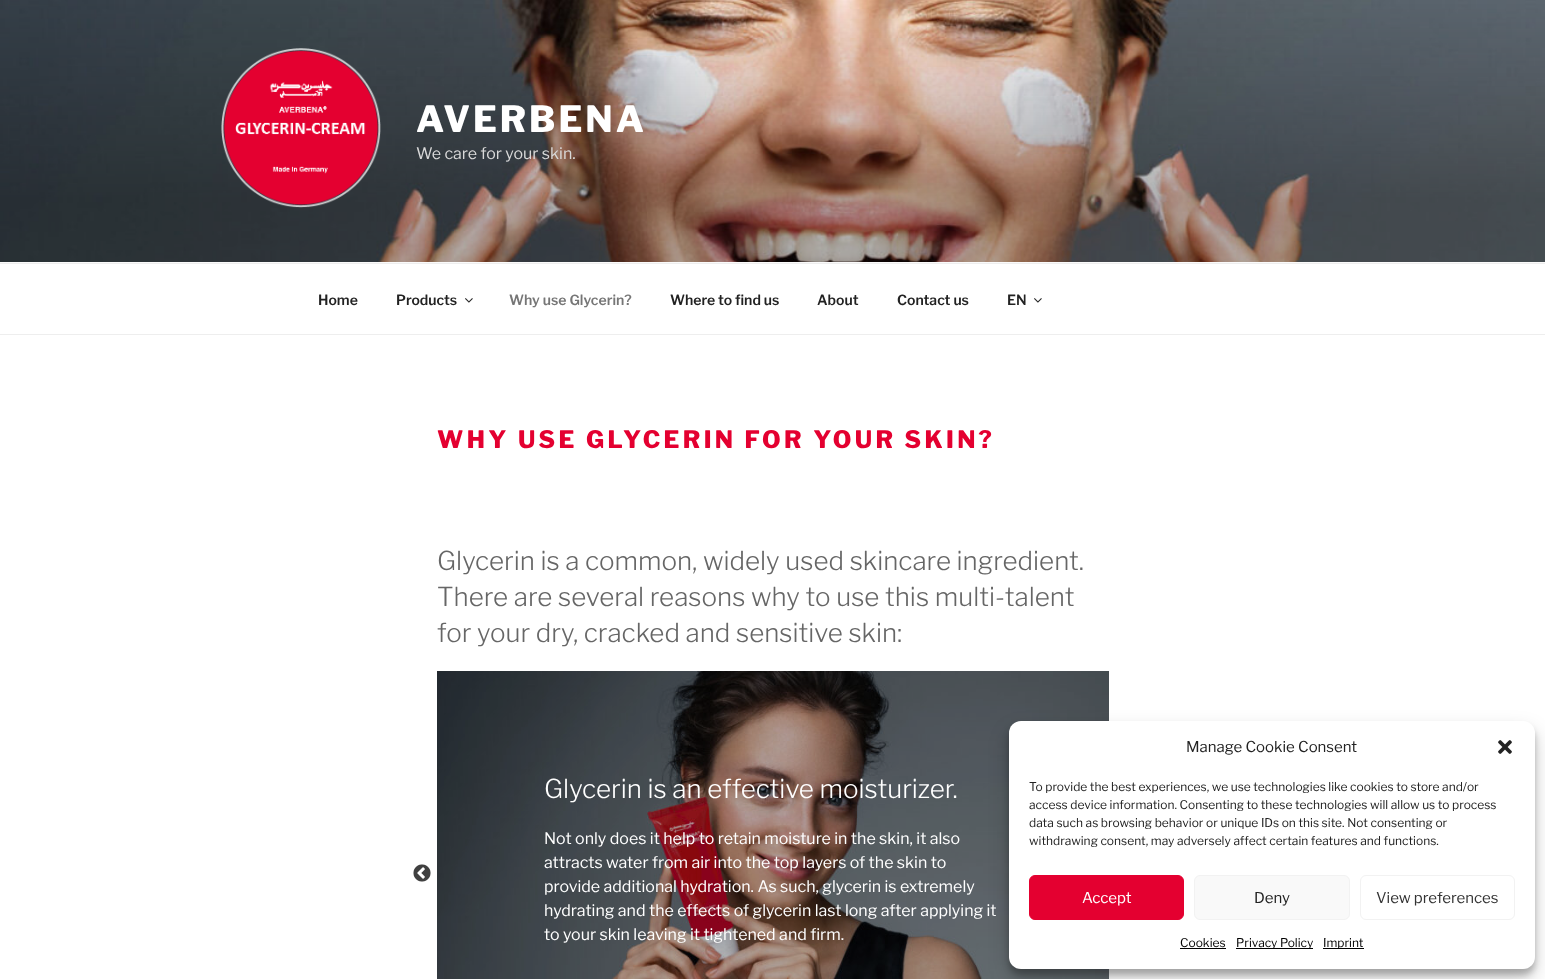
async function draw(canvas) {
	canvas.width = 1545;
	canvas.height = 979;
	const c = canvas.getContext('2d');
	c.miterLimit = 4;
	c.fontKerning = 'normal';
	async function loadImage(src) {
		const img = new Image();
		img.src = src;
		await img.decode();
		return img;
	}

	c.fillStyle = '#fafafa';
	c.fillRect(0, 0, 1545, 979);
	c.drawImage(await loadImage('img1.png'), 0, 0, 1545, 262);
	c.drawImage(await loadImage('img2.png'), 221, 48, 160, 160);
	c.letterSpacing = '3px';
	c.font = '100 36px Libre Franklin';
	c.fillStyle = '#fff';
	c.fillText('AVERBENA', 416, 132);
	c.letterSpacing = '0px';
	c.font = '100 16px "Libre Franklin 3"';
	c.fillStyle = '#d9d9d9';
	c.fillText('We care for your skin.', 416, 159);
	for (const [x, y, w, h, color] of [
		[0, 264, 1545, 70, '#fff'],
		[0, 263, 1545, 1, '#eee'],
		[0, 334, 1545, 1, '#eee'],
	]) {
		c.fillStyle = color;
		c.fillRect(x, y, w, h);
	}
	c.font = '100 14px "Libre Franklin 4"';
	c.fillStyle = '#222';
	c.fillText('Home', 318, 305);
	c.fillText('Products', 396, 305);
	c.drawImage(await loadImage('img3.png'), 465, 298, 8, 5);
	c.fillStyle = '#767676';
	c.fillText('Why use Glycerin?', 509, 305);
	c.fillStyle = '#222';
	for (const [text, x, y] of [
		['Where to find us', 670, 305],
		['About', 817, 305],
		['Contact us', 897, 305],
		['EN', 1007, 305],
	]) {
		c.fillText(text, x, y);
	}
	c.drawImage(await loadImage('img3.png'), 1034, 298, 8, 5);
	c.fillStyle = '#fff';
	c.fillRect(0, 335, 1545, 644);
	c.letterSpacing = '3.35px';
	c.font = '100 24px Libre Franklin';
	c.fillStyle = '#e40030';
	c.fillText('WHY USE GLYCERIN FOR YOUR SKIN?', 437, 448);
	c.letterSpacing = '0px';
	c.font = '100 26px "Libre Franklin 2"';
	c.fillStyle = '#666';
	for (const [text, x, y] of [
		['Glycerin is a common, widely used skincare ingredient.', 437, 570],
		['There are several reasons why to use this multi-talent', 437, 606],
		['for your dry, cracked and sensitive skin:', 437, 642],
	]) {
		c.fillText(text, x, y);
	}
	c.drawImage(await loadImage('img4.png'), 413, 864, 18, 18);
	c.drawImage(await loadImage('img5.png'), 437, 671, 672, 308);
	c.fillStyle = '#fff';
	c.fillText('Glycerin is an effective moisturizer.', 544, 798);
	c.font = '100 16px "Libre Franklin 3"';
	for (const [text, x, y] of [
		['Not only does it help to retain moisture in the skin, it also', 544, 844],
		['attracts water from air into the top layers of the skin to', 544, 868],
		['provide additional hydration. As such, glycerin is extremely', 544, 892],
		['hydrating and the effects of glycerin last long after applying it', 544, 916],
		['to your skin leaving it tightened and firm.', 544, 940],
	]) {
		c.fillText(text, x, y);
	}
	c.fillStyle = '#0000003b';
	c.filter = 'blur(3px)';
	c.beginPath();
	c.roundRect(1009, 727, 526, 248, 12);
	c.fill();
	c.filter = 'none';
	c.fillStyle = '#00000030';
	c.filter = 'blur(10px)';
	c.beginPath();
	c.roundRect(1009, 731, 526, 248, 12);
	c.fill();
	c.filter = 'none';
	c.fillStyle = '#fff';
	c.beginPath();
	c.roundRect(1009, 721, 526, 248, 12);
	c.fill();
	c.font = '100 15px "Libre Franklin 3"';
	c.fillStyle = '#222';
	c.fillText('Manage Cookie Consent', 1186, 752);
	c.drawImage(await loadImage('img6.png'), 1498, 740, 14, 14);
	c.font = '100 12px "Libre Franklin 3"';
	for (const [text, x, y] of [
		['To provide the best experiences, we use technologies like cookies to store and/or', 1029, 791],
		['access device information. Consenting to these technologies will allow us to process', 1029, 809],
		['data such as browsing behavior or unique IDs on this site. Not consenting or', 1029, 827],
		['withdrawing consent, may adversely affect certain features and functions.', 1029, 845],
	]) {
		c.fillText(text, x, y);
	}
	c.fillStyle = '#e40030';
	c.beginPath();
	c.roundRect(1029.5, 875.5, 154, 44, 5.5);
	c.fill();
	c.strokeStyle = '#e40030';
	c.stroke();
	c.font = '100 15px "Libre Franklin 3"';
	c.fillStyle = '#fff';
	c.fillText('Accept', 1082, 903);
	c.fillStyle = '#f9f9f9';
	c.beginPath();
	c.roundRect(1194.5, 875.5, 155, 44, 5.5);
	c.fill();
	c.strokeStyle = '#f2f2f2';
	c.stroke();
	c.fillStyle = '#222';
	c.fillText('Deny', 1254, 903);
	c.beginPath();
	c.roundRect(1360.5, 875.5, 154, 44, 5.5);
	c.stroke();
	c.fillStyle = '#333';
	c.fillText('View preferences', 1376, 903);
	c.font = '100 12px "Libre Franklin 3"';
	c.fillStyle = '#000';
	c.fillText('Cookies', 1180, 947);
	c.fillRect(1180, 948, 46, 1);
	c.fillRect(1236, 948, 77, 1);
	c.fillText('Privacy Policy', 1236, 947);
	c.fillRect(1323, 948, 41, 1);
	c.fillText('Imprint', 1323, 947);
}

draw(document.querySelector('canvas'));
